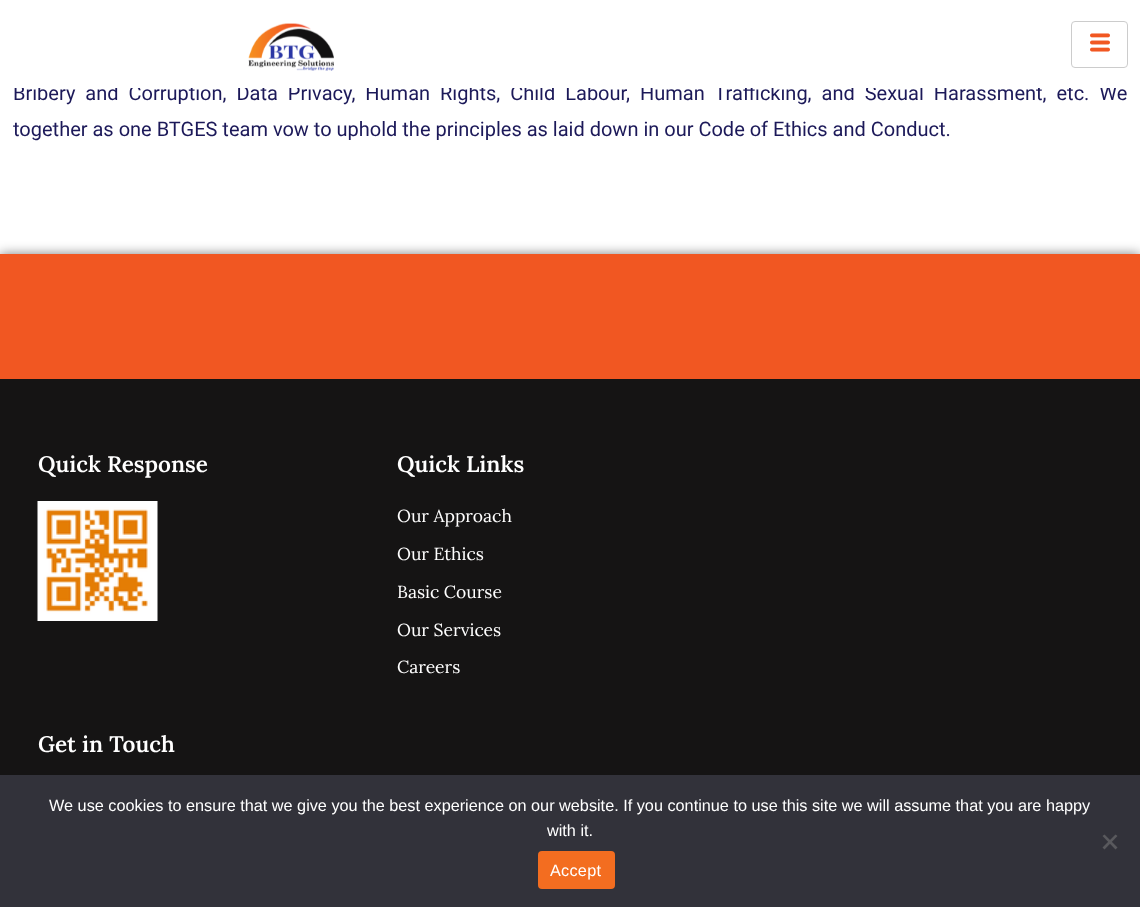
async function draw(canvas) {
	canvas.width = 1140;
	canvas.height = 907;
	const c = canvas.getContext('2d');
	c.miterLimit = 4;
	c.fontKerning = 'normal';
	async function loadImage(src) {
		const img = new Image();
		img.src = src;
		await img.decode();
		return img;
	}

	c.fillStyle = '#fff';
	c.fillRect(0, 0, 1140, 907);
	c.wordSpacing = '5px';
	c.font = '20px Roboto';
	c.fillStyle = '#1c1959';
	c.fillText('Bribery and Corruption, Data Privacy, Human Rights, Child Labour, Human Trafficking, and Sexual Harassment, etc. We', 13, 100);
	c.fillStyle = '#fff';
	c.fillRect(14, 84, 1103, 4);
	c.drawImage(await loadImage('img1.png'), 248, 23, 86, 48);
	c.beginPath();
	c.roundRect(1071.5, 21.5, 56, 46, 3.5);
	c.strokeStyle = '#ccc';
	c.stroke();
	c.drawImage(await loadImage('img2.png'), 1090, 33, 20, 19);
	c.wordSpacing = '0px';
	c.fillStyle = '#1c1959';
	c.fillText('together as one BTGES team vow to uphold the principles as laid down in our Code of Ethics and Conduct.', 13, 136);
	c.fillStyle = '#00000080';
	c.filter = 'blur(6px)';
	c.beginPath();
	c.rect(0, 254, 1140, 125);
	c.fill();
	c.filter = 'none';
	c.fillStyle = '#f15722';
	c.fillRect(0, 254, 1140, 125);
	c.fillStyle = '#151414';
	c.fillRect(0, 379, 1140, 396);
	c.font = '600 22.5px Lora';
	c.fillStyle = '#fff';
	c.fillText('Quick Response', 38, 472);
	c.drawImage(await loadImage('img3.png'), 37, 501, 121, 120);
	c.fillText('Quick Links', 397, 472);
	c.font = '17.5px Lora';
	for (const [text, x, y] of [
		['Our Approach', 397, 522],
		['Our Ethics', 397, 560],
		['Basic Course', 397, 598],
		['Our Services', 397, 636],
		['Careers', 397, 673],
	]) {
		c.fillText(text, x, y);
	}
	c.font = '600 22.5px Lora';
	c.fillText('Get in Touch', 38, 752);
	c.fillStyle = '#32323a';
	c.fillRect(0, 775, 1140, 132);
	c.font = '16.25px Liberation Sans';
	c.fillStyle = '#fff';
	c.fillText('We use cookies to ensure that we give you the best experience on our website. If you continue to use this site we will assume that you are happy', 49, 811);
	c.fillText('with it.', 547, 836);
	c.fillStyle = '#59595d';
	c.beginPath();
	c.moveTo(1115.5, 834.5);
	c.lineTo(1117.5, 836);
	c.lineTo(1104.5, 849.5);
	c.lineTo(1102.5, 847.5);
	c.closePath();
	c.fill();
	c.beginPath();
	c.moveTo(1102.5, 836);
	c.lineTo(1104.5, 834.5);
	c.lineTo(1117.5, 847.5);
	c.lineTo(1115.5, 849.5);
	c.closePath();
	c.fill();
	c.fillStyle = '#f36d20';
	c.beginPath();
	c.roundRect(538, 851, 77, 38, 4);
	c.fill();
	c.letterSpacing = '0.25px';
	c.fillStyle = '#fff';
	c.fillText('Accept', 550, 876);
}

draw(document.querySelector('canvas'));
